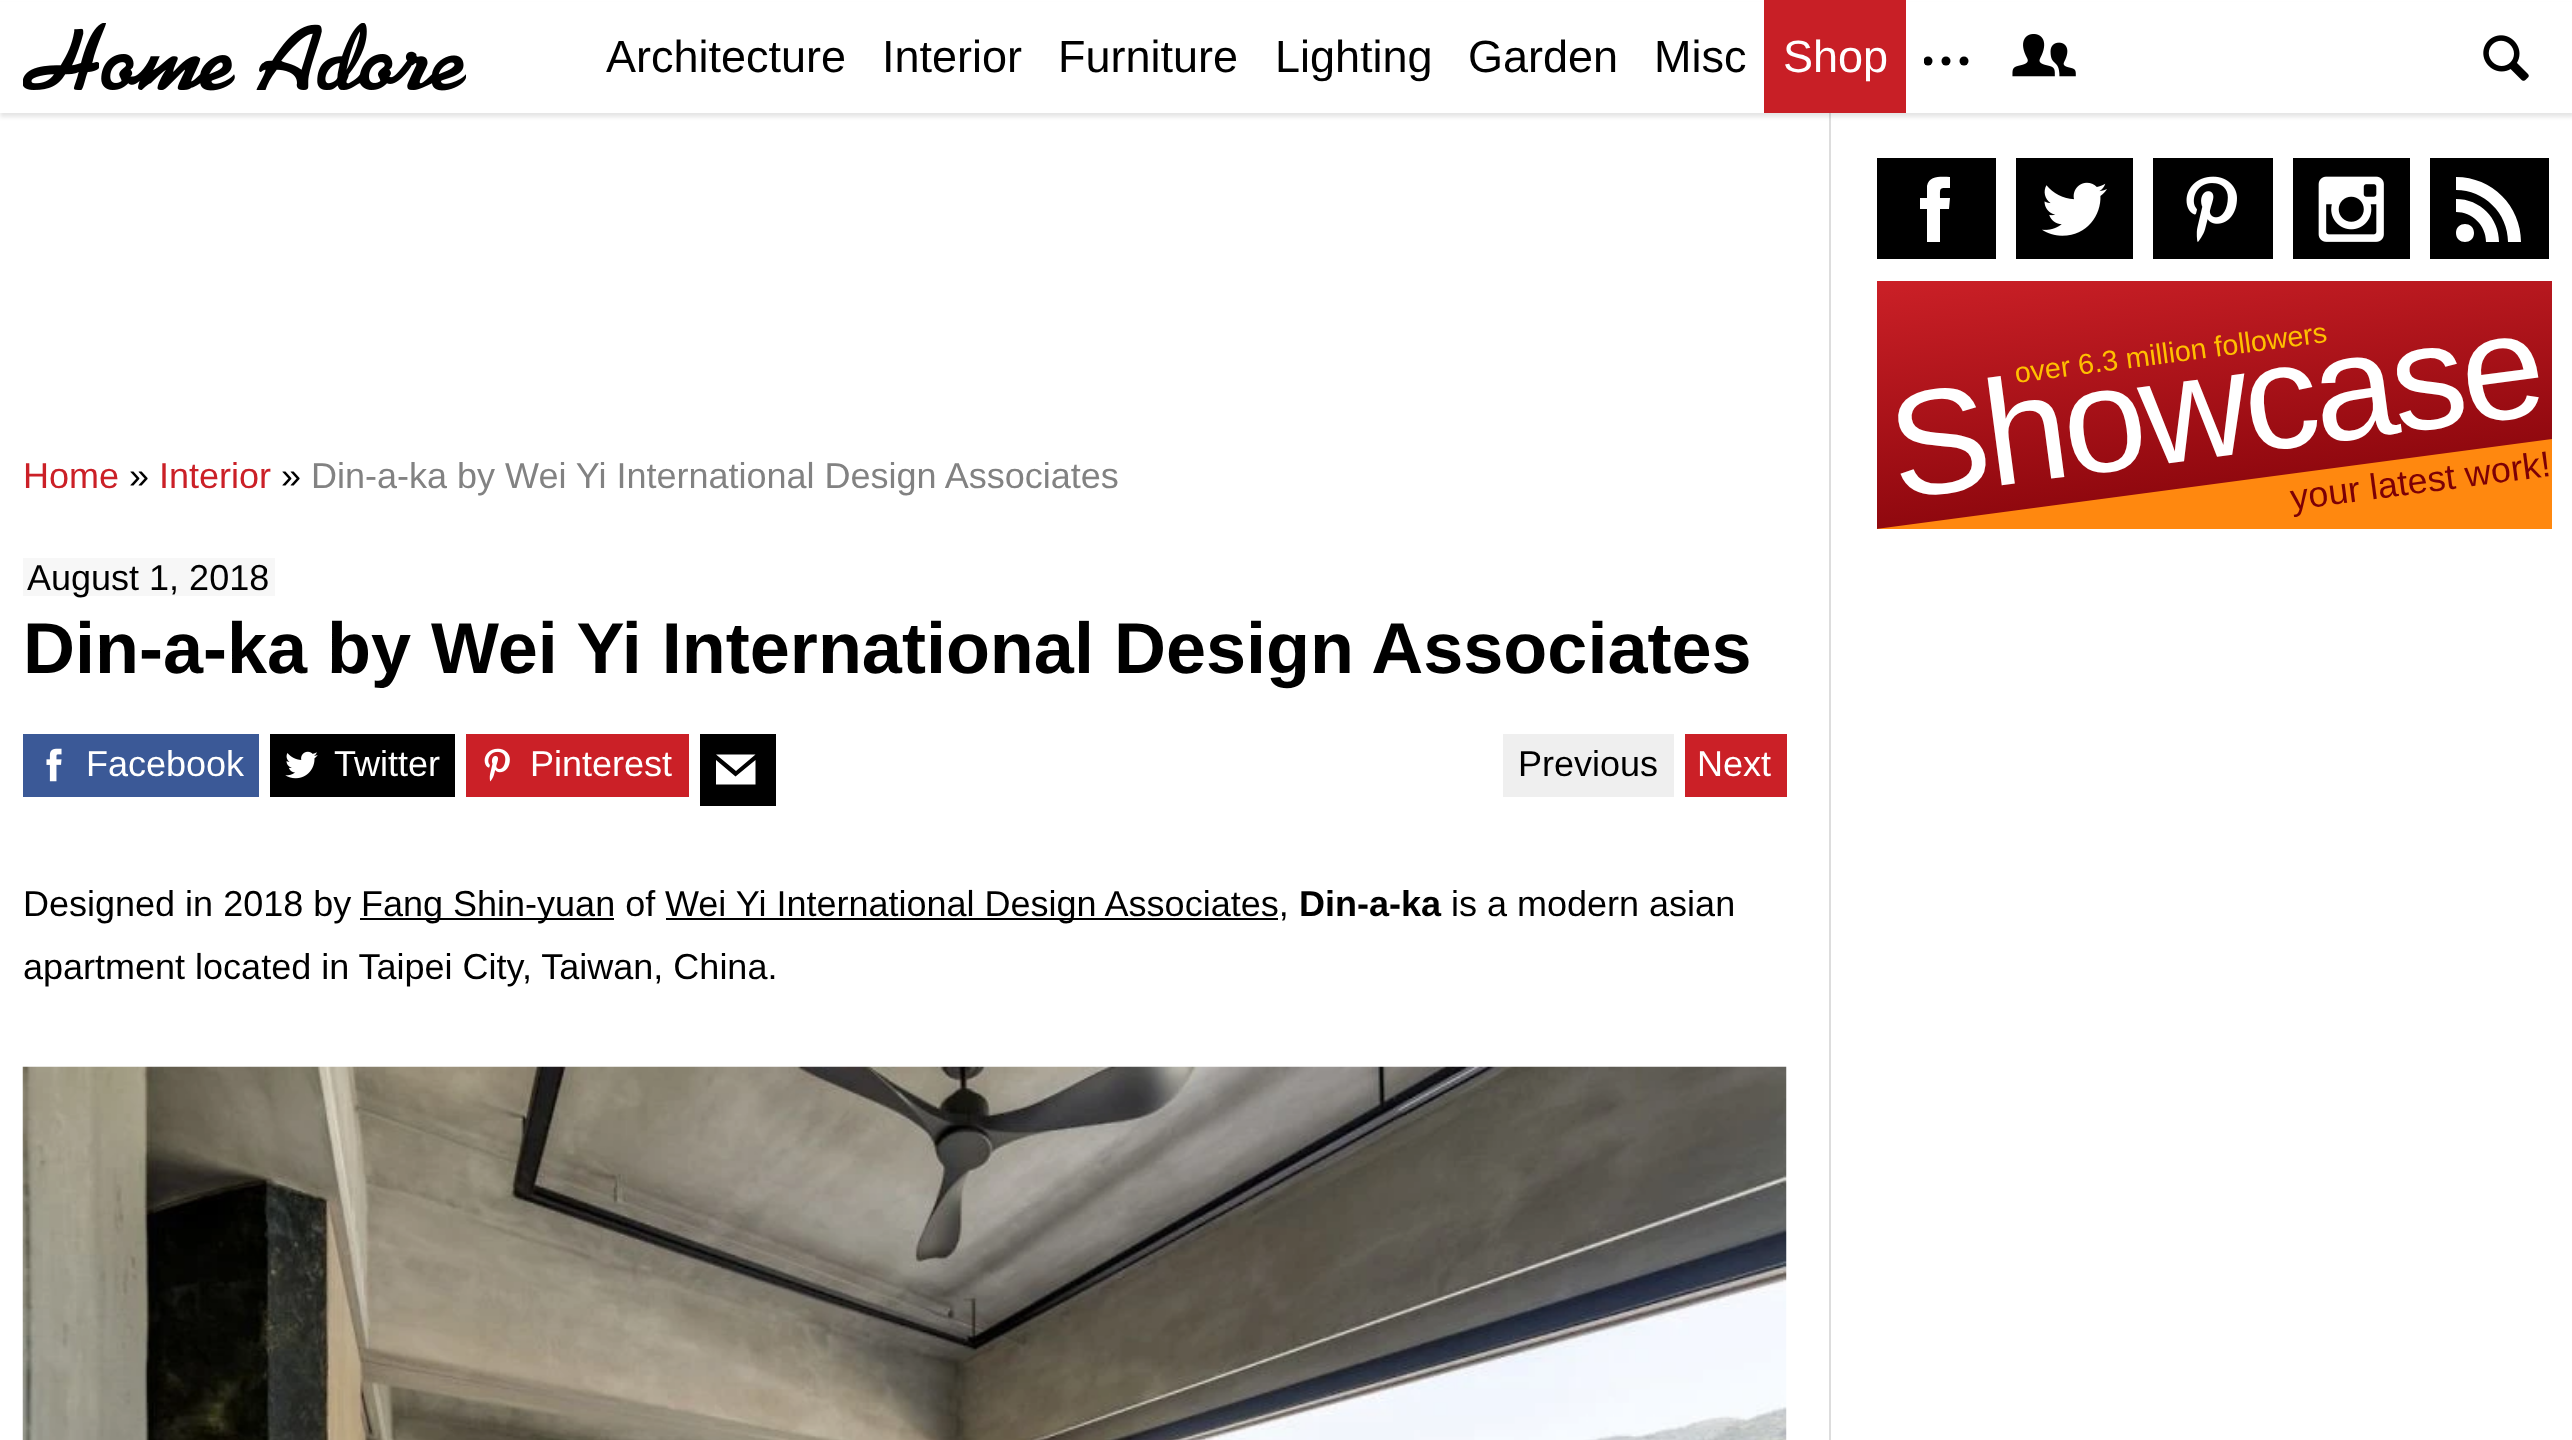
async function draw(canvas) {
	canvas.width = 2572;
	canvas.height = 1440;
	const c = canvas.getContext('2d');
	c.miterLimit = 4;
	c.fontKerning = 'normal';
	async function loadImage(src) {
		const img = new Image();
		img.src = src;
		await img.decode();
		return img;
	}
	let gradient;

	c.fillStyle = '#fff';
	c.fillRect(0, 0, 2572, 1440);
	c.fillStyle = '#ddd';
	c.fillRect(1829, 113, 2, 1327);
	c.fillStyle = '#0000001a';
	c.filter = 'blur(2px)';
	c.beginPath();
	c.rect(0, 5, 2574, 112);
	c.fill();
	c.filter = 'none';
	c.fillStyle = '#fff';
	c.fillRect(0, 2, 2572, 111);
	c.drawImage(await loadImage('img1.png'), 23, 23, 443, 68);
	c.font = '45px Liberation Sans';
	c.fillStyle = '#000';
	for (const [text, x, y] of [
		['Architecture', 606, 72],
		['Interior', 882, 72],
		['Furniture', 1058, 72],
		['Lighting', 1275, 72],
		['Garden', 1468, 72],
		['Misc', 1654, 72],
	]) {
		c.fillText(text, x, y);
	}
	c.fillStyle = '#c81f26';
	c.fillRect(1764, 0, 142, 113);
	c.fillStyle = '#fff';
	c.fillText('Shop', 1783, 72);
	c.save();
	c.beginPath();
	c.rect(1924, 56, 45, 16);
	c.clip();
	c.fillStyle = '#000';
	c.beginPath();
	c.arc(1928, 61, 4.5, 0, 2 * Math.PI);
	c.fill();
	c.restore();
	c.fillStyle = '#000';
	c.beginPath();
	c.arc(1946, 61, 4.5, 0, 2 * Math.PI);
	c.fill();
	c.beginPath();
	c.arc(1964, 61, 4.5, 0, 2 * Math.PI);
	c.fill();
	c.drawImage(await loadImage('img2.png'), 2012, 34, 64, 43);
	c.drawImage(await loadImage('img3.png'), 2483, 35, 46, 46);
	c.fillRect(1877, 158, 119, 101);
	c.fillStyle = '#fff';
	c.beginPath();
	c.moveTo(1927, 198);
	c.lineTo(1920, 198);
	c.lineTo(1920, 209);
	c.lineTo(1927, 209);
	c.lineTo(1927, 242);
	c.lineTo(1940, 242);
	c.lineTo(1940, 209);
	c.lineTo(1949, 209);
	c.lineTo(1950, 198);
	c.lineTo(1940, 198);
	c.bezierCurveTo(1940, 187, 1939, 188, 1950, 188);
	c.lineTo(1950, 177);
	c.bezierCurveTo(1942, 177, 1929, 175, 1927, 186);
	c.closePath();
	c.fill();
	c.fillStyle = '#000';
	c.fillRect(2016, 158, 117, 101);
	c.drawImage(await loadImage('img4.png'), 2042, 182, 65, 54);
	c.fillRect(2153, 158, 120, 101);
	c.drawImage(await loadImage('img5.png'), 2186, 176, 51, 66);
	c.fillRect(2293, 158, 117, 101);
	c.drawImage(await loadImage('img6.png'), 2318, 176, 66, 66);
	c.fillRect(2430, 158, 119, 101);
	c.fillStyle = '#fff';
	c.beginPath();
	c.moveTo(2474, 233);
	c.bezierCurveTo(2474, 245, 2456, 245, 2456, 233);
	c.bezierCurveTo(2456, 221, 2474, 221, 2474, 233);
	c.closePath();
	c.moveTo(2456, 199);
	c.lineTo(2456, 212);
	c.bezierCurveTo(2472, 212, 2486, 225, 2486, 242);
	c.lineTo(2499, 242);
	c.bezierCurveTo(2499, 218, 2480, 199, 2456, 199);
	c.closePath();
	c.moveTo(2456, 190);
	c.bezierCurveTo(2484, 190, 2508, 213, 2508, 242);
	c.lineTo(2521, 242);
	c.bezierCurveTo(2521, 206, 2492, 177, 2456, 177);
	c.closePath();
	c.fill();
	gradient = c.createLinearGradient(2194, 242, 2234, 568);
	gradient.addColorStop(0, '#cb2027');
	gradient.addColorStop(1, '#7c0006');
	c.fillStyle = gradient;
	c.fillRect(1877, 281, 675, 248);
	c.font = '28.75px Liberation Sans';
	c.fillStyle = '#ffc000';
	c.save();
	c.translate(2016, 383);
	c.rotate(-7.5 * Math.PI / 180);
	c.fillText('over 6.3 million followers', 0, 0);
	c.restore();
	c.fillStyle = '#ff880f';
	c.beginPath();
	c.moveTo(2552, 529);
	c.lineTo(1876, 529);
	c.lineTo(2552, 439);
	c.closePath();
	c.fill();
	c.letterSpacing = '-4.5px';
	c.font = '149.5px Liberation Sans';
	c.fillStyle = '#fff';
	c.save();
	c.translate(1897, 499);
	c.rotate(-7.5 * Math.PI / 180);
	c.fillText('Showcase', 0, 0);
	c.restore();
	c.letterSpacing = '0px';
	c.font = '36px Liberation Sans';
	c.fillStyle = '#7c0006';
	c.save();
	c.translate(2292, 510);
	c.rotate(-7.5 * Math.PI / 180);
	c.fillText('your latest work!', 0, 0);
	c.restore();
	c.fillStyle = '#cb2027';
	c.fillText('Home', 23, 488);
	c.fillStyle = '#000';
	c.fillText('»', 129, 488);
	c.fillStyle = '#cb2027';
	c.fillText('Interior', 159, 488);
	c.fillStyle = '#000';
	c.fillText('»', 281, 488);
	c.fillStyle = '#828282';
	c.fillText('Din-a-ka by Wei Yi International Design Associates', 311, 488);
	c.fillStyle = '#f7f7f7';
	c.fillRect(23, 558, 252, 38);
	c.fillStyle = '#000';
	c.fillText('August 1, 2018', 27, 590);
	c.font = 'bold 72px Liberation Sans';
	c.fillText('Din-a-ka by Wei Yi International Design Associates', 23, 673);
	c.fillStyle = '#3b5997';
	c.fillRect(23, 734, 236, 63);
	c.drawImage(await loadImage('img7.png'), 46, 748, 16, 34);
	c.font = '36px Liberation Sans';
	c.fillStyle = '#fff';
	c.fillText('Facebook', 86, 776);
	c.fillStyle = '#000';
	c.fillRect(270, 734, 185, 63);
	c.drawImage(await loadImage('img8.png'), 285, 751, 33, 28);
	c.fillStyle = '#fff';
	c.fillText('Twitter', 334, 776);
	c.fillStyle = '#cb2027';
	c.fillRect(466, 734, 223, 63);
	c.drawImage(await loadImage('img9.png'), 484, 748, 26, 34);
	c.fillStyle = '#fff';
	c.fillText('Pinterest', 530, 776);
	c.fillStyle = '#000';
	c.fillRect(700, 734, 76, 72);
	c.fillStyle = '#fff';
	c.beginPath();
	c.moveTo(736, 771);
	c.lineTo(716, 754.5);
	c.lineTo(755.5, 754.5);
	c.closePath();
	c.moveTo(735.5, 776.5);
	c.lineTo(716, 760);
	c.lineTo(716, 784.5);
	c.lineTo(755.5, 784.5);
	c.lineTo(755.5, 760);
	c.closePath();
	c.fill();
	c.fillStyle = '#efefef';
	c.fillRect(1503, 734, 171, 63);
	c.fillStyle = '#000';
	c.fillText('Previous', 1518, 776);
	c.fillStyle = '#cb2027';
	c.fillRect(1685, 734, 102, 63);
	c.fillStyle = '#fff';
	c.fillText('Next', 1697, 776);
	c.fillStyle = '#000';
	c.fillText('Designed in 2018 by', 23, 916);
	c.fillRect(360, 918, 254, 2);
	c.fillText('Fang Shin-yuan of', 361, 916);
	c.fillRect(666, 918, 612, 2);
	c.fillText('Wei Yi International Design Associates,', 665, 916);
	c.font = 'bold 36px Liberation Sans';
	c.fillText('Din-a-ka', 1299, 916);
	c.font = '36px Liberation Sans';
	c.fillText('is a modern asian', 1451, 916);
	c.fillText('apartment located in Taipei City, Taiwan, China.', 23, 979);
	c.drawImage(await loadImage('img10.png'), 22, 1066, 1765, 374);
}

draw(document.querySelector('canvas'));
